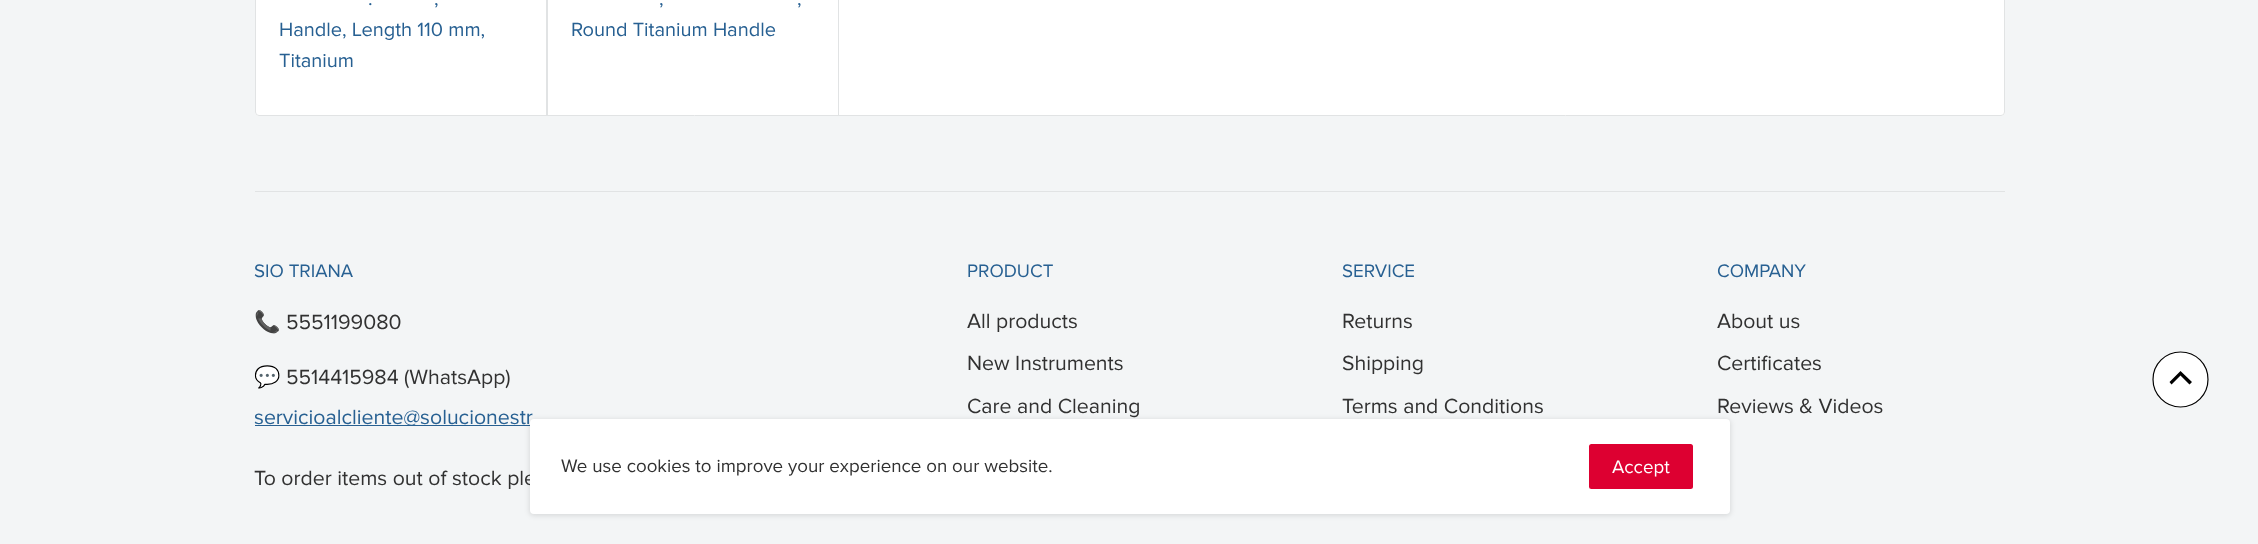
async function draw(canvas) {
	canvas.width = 2258;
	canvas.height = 544;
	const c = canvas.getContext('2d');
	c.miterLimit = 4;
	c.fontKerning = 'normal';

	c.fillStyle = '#f3f5f6';
	c.fillRect(0, 0, 2258, 544);
	c.fillStyle = '#fff';
	c.beginPath();
	c.roundRect(255, -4, 1750, 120, 4);
	c.fill();
	c.beginPath();
	c.moveTo(259, -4);
	c.lineTo(546, -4);
	c.lineTo(546, 116);
	c.lineTo(259, 116);
	c.bezierCurveTo(257, 116, 255, 114, 255, 112);
	c.lineTo(255, 0);
	c.bezierCurveTo(255, -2, 257, -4, 259, -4);
	c.closePath();
	c.fill();
	c.beginPath();
	c.roundRect(255.5, -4.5, 1749, 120, 3.5);
	c.strokeStyle = '#e1e3e4';
	c.stroke();
	c.font = '20px Proxima Nova';
	c.fillStyle = '#276092';
	for (const [text, x, y] of [
		['.', 368, 5],
		[',', 434, 5],
		['Handle, Length 110 mm,', 279, 36],
		['Titanium', 279, 67],
	]) {
		c.fillText(text, x, y);
	}
	c.fillStyle = '#e1e3e4';
	c.fillRect(546, 0, 2, 116);
	c.fillStyle = '#276092';
	for (const [text, x, y] of [
		[',', 659, 5],
		[',', 797, 5],
		['Round Titanium Handle', 571, 36],
	]) {
		c.fillText(text, x, y);
	}
	c.fillStyle = '#e1e3e4';
	c.fillRect(838, 0, 1, 116);
	c.fillRect(255, 191, 1750, 1);
	c.font = '18.75px Proxima Nova';
	c.fillStyle = '#276092';
	c.fillText('SIO TRIANA', 254, 277);
	c.font = '21.25px Noto Color Emoji';
	c.fillStyle = '#313131';
	c.fillText('📞', 254, 329);
	c.font = '21.25px Proxima Nova';
	c.fillText('5551199080', 286, 329);
	c.font = '21.25px Noto Color Emoji';
	c.fillText('💬', 254, 384);
	c.font = '21.25px Proxima Nova';
	c.fillText('5514415984 (WhatsApp)', 286, 384);
	c.fillStyle = '#276092';
	c.fillRect(255, 425, 275, 1);
	c.fillText('servicioalcliente@solucionestr', 254, 424);
	c.font = '18.75px Proxima Nova';
	c.fillText('PRODUCT', 967, 277);
	c.font = '21.25px Proxima Nova';
	c.fillStyle = '#313131';
	for (const [text, x, y] of [
		['All products', 967, 328],
		['New Instruments', 967, 370],
		['Care and Cleaning', 967, 413],
	]) {
		c.fillText(text, x, y);
	}
	c.font = '18.75px Proxima Nova';
	c.fillStyle = '#276092';
	c.fillText('SERVICE', 1342, 277);
	c.font = '21.25px Proxima Nova';
	c.fillStyle = '#313131';
	for (const [text, x, y] of [
		['Returns', 1342, 328],
		['Shipping', 1342, 370],
		['Terms and Conditions', 1342, 413],
	]) {
		c.fillText(text, x, y);
	}
	c.font = '18.75px Proxima Nova';
	c.fillStyle = '#276092';
	c.fillText('COMPANY', 1717, 277);
	c.font = '21.25px Proxima Nova';
	c.fillStyle = '#313131';
	for (const [text, x, y] of [
		['About us', 1717, 328],
		['Certificates', 1717, 370],
		['Reviews & Videos', 1717, 413],
		['To order items out of stock ple', 254, 485],
	]) {
		c.fillText(text, x, y);
	}
	c.fillStyle = '#0000001a';
	c.filter = 'blur(2.5px)';
	c.beginPath();
	c.roundRect(529, 419, 1202, 97, 5);
	c.fill();
	c.filter = 'none';
	c.fillStyle = '#fff';
	c.beginPath();
	c.roundRect(530, 419, 1200, 95, 4);
	c.fill();
	c.font = '18.75px Proxima Nova';
	c.fillStyle = '#313131';
	c.fillText('We use cookies to improve your experience on our website.', 561, 472);
	c.fillStyle = '#dd0031';
	c.beginPath();
	c.roundRect(1589, 444, 104, 45, 2.5);
	c.fill();
	c.fillStyle = '#fff';
	c.fillText('Accept', 1612, 473);
	c.beginPath();
	c.moveTo(2209, 379);
	c.bezierCurveTo(2209, 395, 2196, 408, 2181, 408);
	c.bezierCurveTo(2165, 408, 2152, 395, 2152, 379);
	c.bezierCurveTo(2152, 364, 2165, 351, 2181, 351);
	c.bezierCurveTo(2196, 351, 2209, 364, 2209, 379);
	c.closePath();
	c.fill();
	c.beginPath();
	c.moveTo(2208, 379.5);
	c.bezierCurveTo(2208, 394.5, 2196, 407, 2180.5, 407);
	c.bezierCurveTo(2165.5, 407, 2153, 394.5, 2153, 379.5);
	c.bezierCurveTo(2153, 364, 2165.5, 352, 2180.5, 352);
	c.bezierCurveTo(2196, 352, 2208, 364, 2208, 379.5);
	c.closePath();
	c.strokeStyle = '#000';
	c.lineWidth = 1.2;
	c.stroke();
	c.fillStyle = '#000';
	c.beginPath();
	c.moveTo(2180.5, 371);
	c.lineTo(2169.5, 382);
	c.lineTo(2171.5, 384.5);
	c.lineTo(2180.5, 375.5);
	c.lineTo(2189.5, 384.5);
	c.lineTo(2192, 382);
	c.closePath();
	c.fill();
}

draw(document.querySelector('canvas'));
